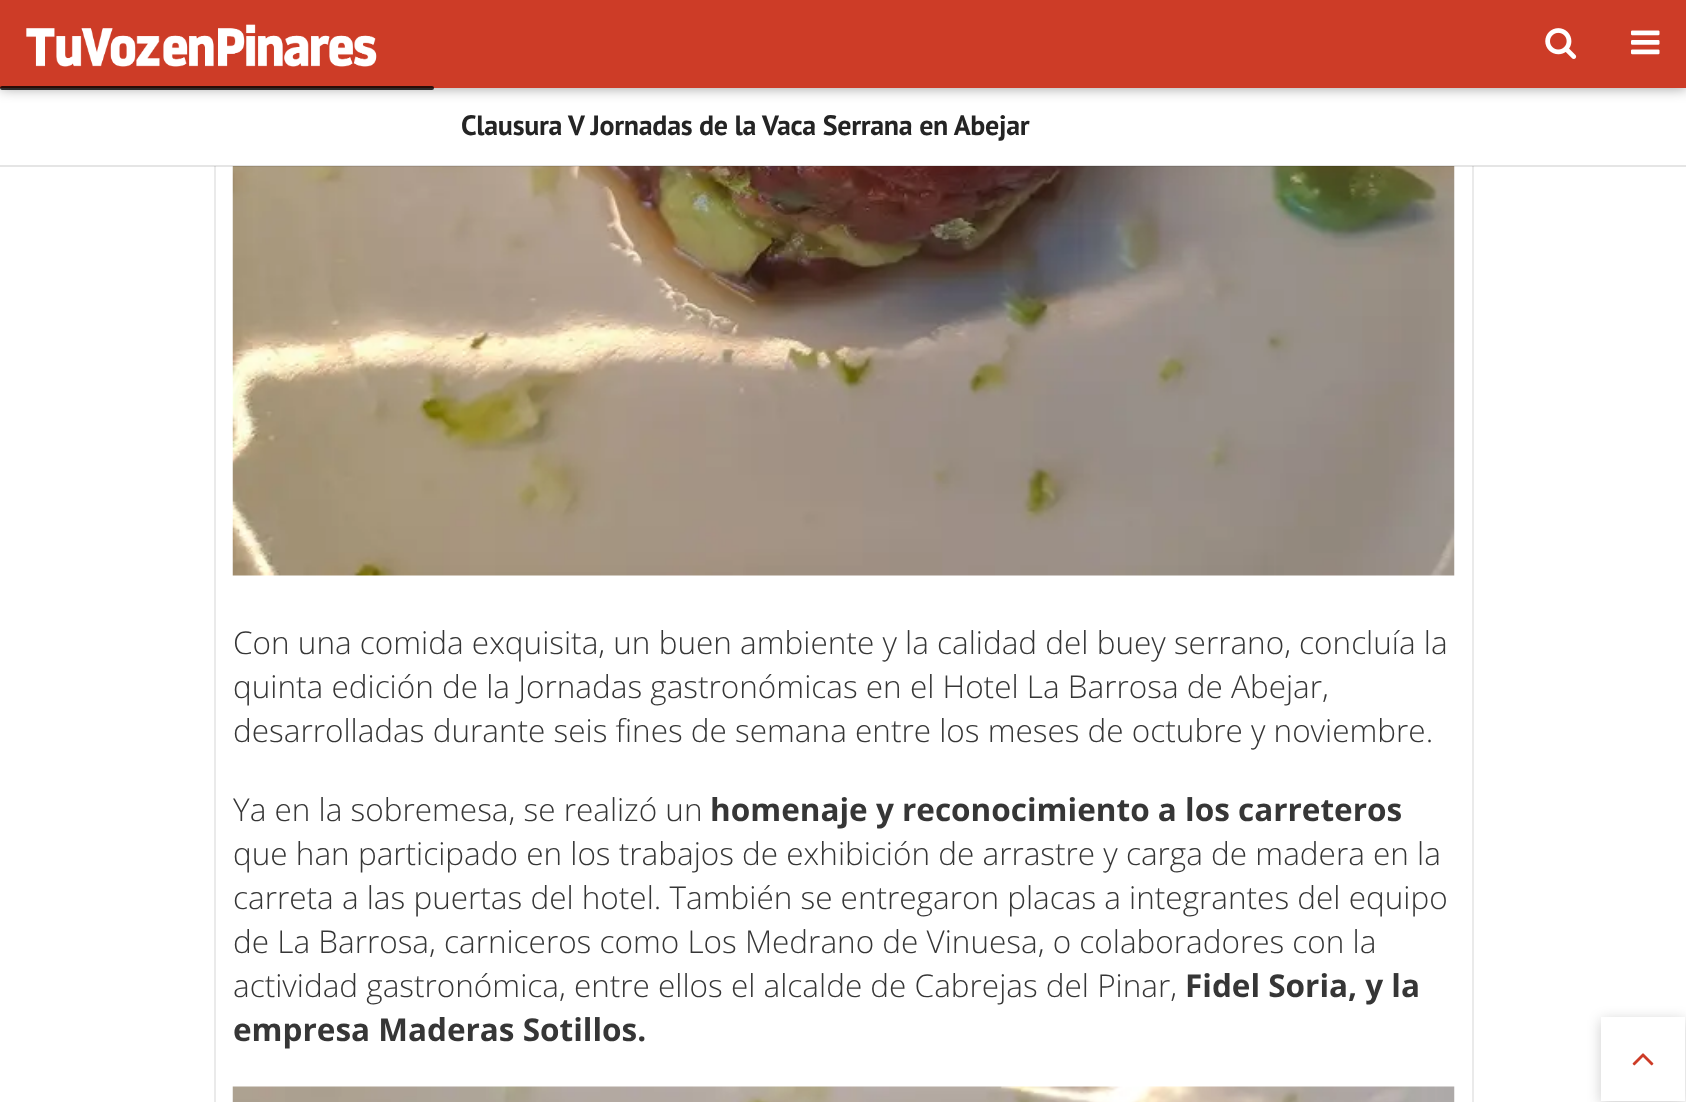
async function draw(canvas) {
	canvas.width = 1686;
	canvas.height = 1102;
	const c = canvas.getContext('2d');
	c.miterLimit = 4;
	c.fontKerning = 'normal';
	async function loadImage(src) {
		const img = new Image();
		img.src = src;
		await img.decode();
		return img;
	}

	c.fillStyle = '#fff';
	c.fillRect(0, 0, 1686, 1102);
	c.strokeStyle = '#eaeaea';
	c.lineWidth = 2;
	c.strokeRect(215, -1, 1258, 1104);
	c.fillRect(214, 88, 1260, 78);
	c.fillStyle = '#00000066';
	c.filter = 'blur(7px)';
	c.beginPath();
	c.rect(0, 0, 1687, 88);
	c.fill();
	c.filter = 'none';
	c.fillStyle = '#cd3c27';
	c.fillRect(0, 0, 1686, 88);
	c.drawImage(await loadImage('img1.png'), 26, 24, 351, 43);
	c.drawImage(await loadImage('img2.png'), 1545, 28, 32, 31);
	c.drawImage(await loadImage('img3.png'), 1631, 30, 29, 25);
	c.fillStyle = '#000000cc';
	c.beginPath();
	c.roundRect(0, 86, 434, 4, 2);
	c.fill();
	c.drawImage(await loadImage('img4.png'), 232, 166, 1223, 410);
	c.fillStyle = '#0000001a';
	c.fillRect(0, 165, 1686, 2);
	c.letterSpacing = '-0.3px';
	c.font = 'bold 28px PT Sans';
	c.fillStyle = '#242424';
	c.fillText('Clausura V Jornadas de la Vaca Serrana en Abejar', 461, 135);
	c.letterSpacing = '0px';
	c.font = '300 31.5px Open Sans';
	c.fillStyle = '#363636';
	for (const [text, x, y] of [
		['Con una comida exquisita, un buen ambiente y la calidad del buey serrano, concluía la', 233, 654],
		['quinta edición de la Jornadas gastronómicas en el Hotel La Barrosa de Abejar,', 233, 698],
		['desarrolladas durante seis fines de semana entre los meses de octubre y noviembre.', 233, 742],
		['Ya en la sobremesa, se realizó un', 233, 821],
	]) {
		c.fillText(text, x, y);
	}
	c.font = 'bold 31.5px Open Sans';
	c.fillText('homenaje y reconocimiento a los carreteros', 710, 821);
	c.font = '300 31.5px Open Sans';
	for (const [text, x, y] of [
		['que han participado en los trabajos de exhibición de arrastre y carga de madera en la', 233, 865],
		['carreta a las puertas del hotel. También se entregaron placas a integrantes del equipo', 233, 909],
		['de La Barrosa, carniceros como Los Medrano de Vinuesa, o colaboradores con la', 233, 953],
		['actividad gastronómica, entre ellos el alcalde de Cabrejas del Pinar,', 233, 997],
	]) {
		c.fillText(text, x, y);
	}
	c.font = 'bold 31.5px Open Sans';
	c.fillText('Fidel Soria, y la', 1185, 997);
	c.fillText('empresa Maderas Sotillos.', 233, 1041);
	c.drawImage(await loadImage('img5.png'), 232, 1086, 1223, 16);
	c.fillStyle = '#00000033';
	c.filter = 'blur(7px)';
	c.beginPath();
	c.rect(1601, 1020, 84, 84);
	c.fill();
	c.filter = 'none';
	c.fillStyle = '#fff';
	c.fillRect(1601, 1017, 84, 84);
	c.drawImage(await loadImage('img6.png'), 1632, 1053, 22, 13);
}

draw(document.querySelector('canvas'));
